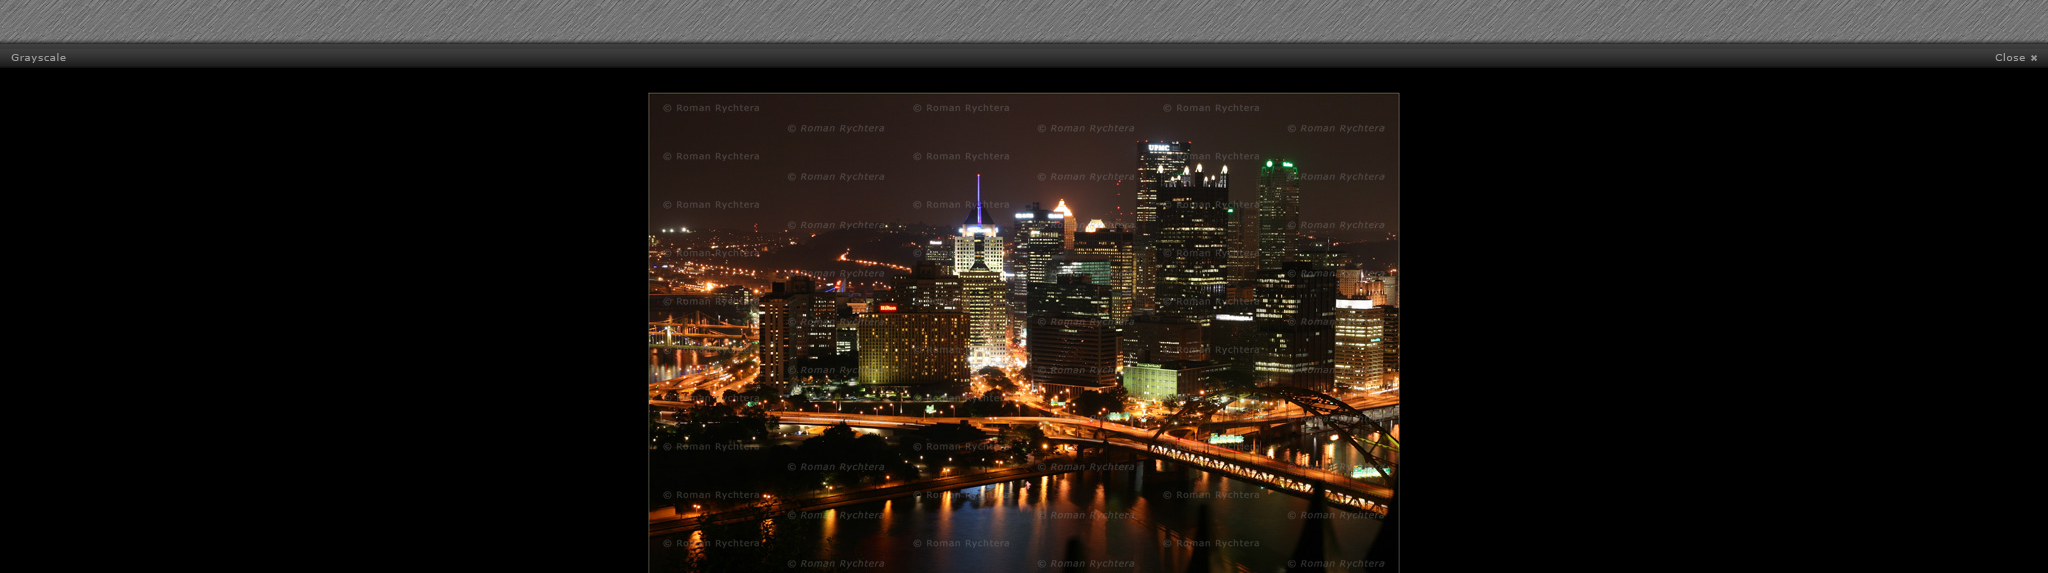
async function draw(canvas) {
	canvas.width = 2048;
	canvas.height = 573;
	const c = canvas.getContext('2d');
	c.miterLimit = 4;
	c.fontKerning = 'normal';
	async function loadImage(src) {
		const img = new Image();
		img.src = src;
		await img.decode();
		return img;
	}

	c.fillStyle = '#fff';
	c.fillRect(0, 0, 2048, 573);
	c.drawImage(await loadImage('img1.png'), 0, 0, 2048, 44);
	c.drawImage(await loadImage('img2.png'), 0, 39, 2048, 29);
	c.drawImage(await loadImage('img3.png'), 11, 53, 55, 10);
	c.drawImage(await loadImage('img4.png'), 1995, 53, 42, 8);
	c.fillStyle = '#000';
	c.fillRect(0, 68, 2048, 505);
	c.drawImage(await loadImage('img5.png'), 648, 92, 752, 481);
}

draw(document.querySelector('canvas'));
